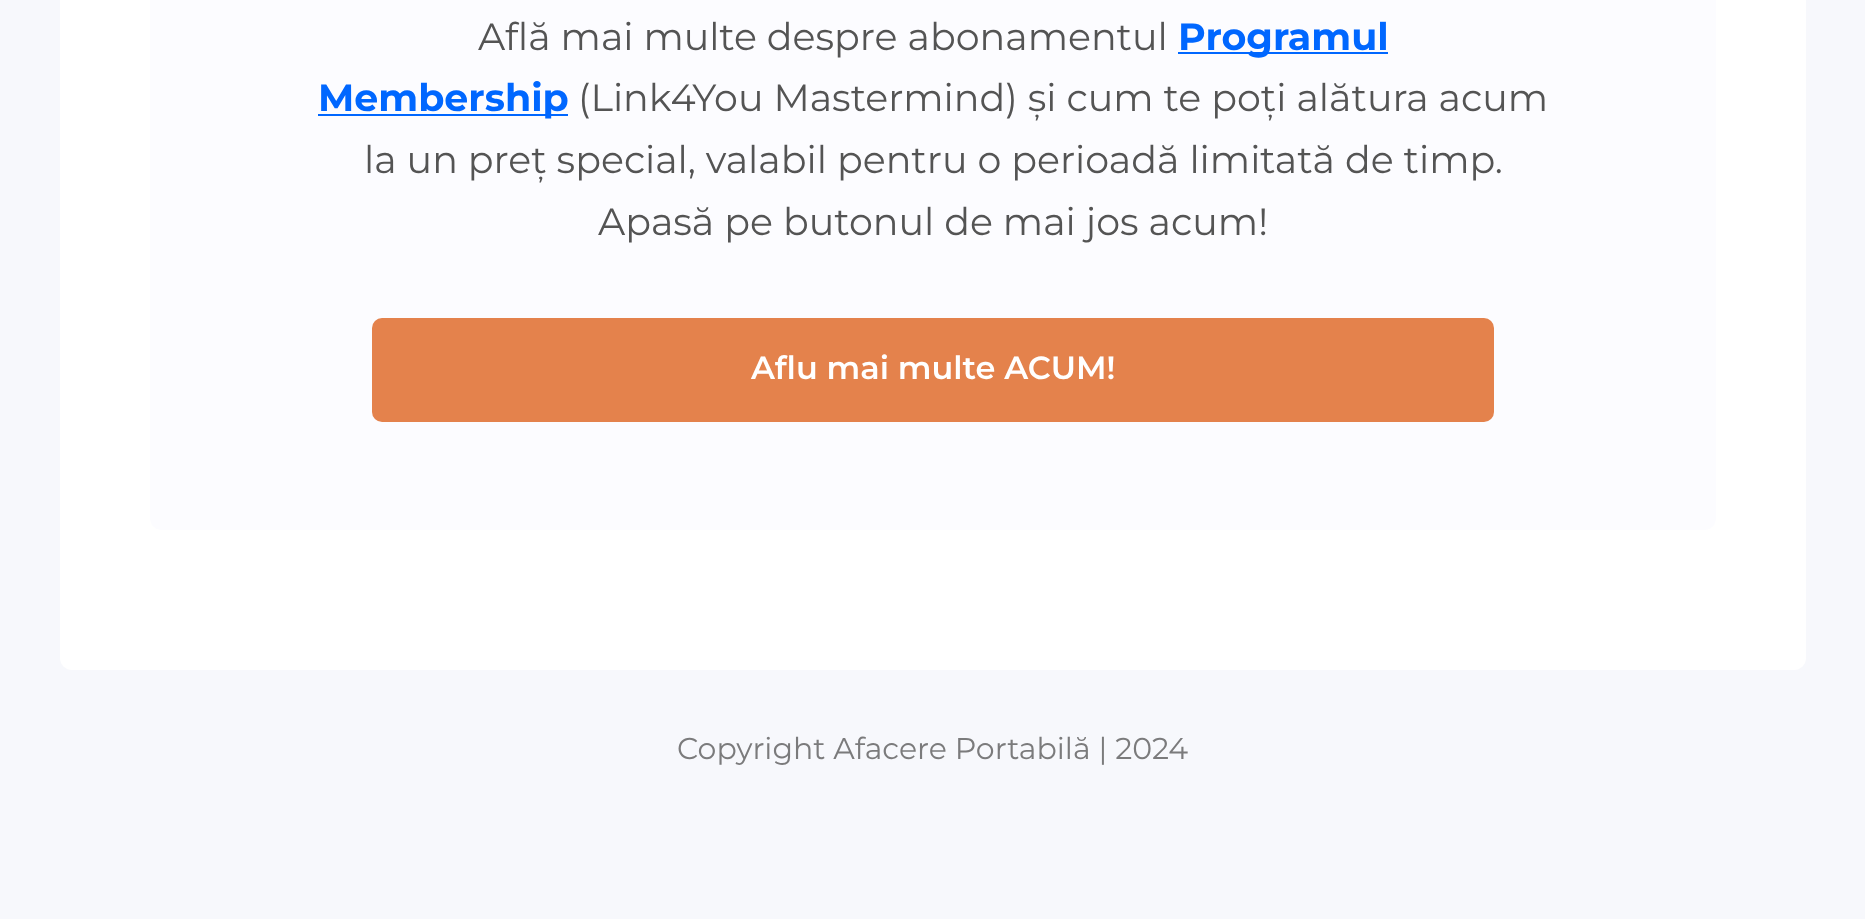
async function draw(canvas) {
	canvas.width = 1865;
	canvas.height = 919;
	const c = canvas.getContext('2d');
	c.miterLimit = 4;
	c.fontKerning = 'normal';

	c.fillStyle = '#f7f8fc';
	c.fillRect(0, 0, 1865, 919);
	c.fillStyle = '#fff';
	c.beginPath();
	c.roundRect(60, -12, 1746, 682, 12);
	c.fill();
	c.fillStyle = '#fcfcff';
	c.beginPath();
	c.roundRect(150, -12, 1566, 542, 12);
	c.fill();
	c.font = '38px Montserrat';
	c.fillStyle = '#545454';
	c.fillText('Află mai multe despre abonamentul', 478, 50);
	c.fillStyle = '#0067ff';
	c.fillRect(1178, 52, 210, 2);
	c.font = 'bold 38px Montserrat';
	c.fillText('Programul', 1178, 50);
	c.fillRect(318, 114, 250, 2);
	c.fillText('Membership', 318, 111);
	c.font = '38px Montserrat';
	c.fillStyle = '#545454';
	for (const [text, x, y] of [
		['(Link4You Mastermind) și cum te poți alătura acum', 578, 111],
		['la un preț special, valabil pentru o perioadă limitată de timp.', 364, 173],
		['Apasă pe butonul de mai jos acum!', 598, 235],
	]) {
		c.fillText(text, x, y);
	}
	c.fillStyle = '#e4824c';
	c.beginPath();
	c.roundRect(372, 318, 1122, 104, 10);
	c.fill();
	c.font = '600 32px Montserrat';
	c.fillStyle = '#fff';
	c.fillText('Aflu mai multe ACUM!', 751, 379);
	c.font = '30px Montserrat';
	c.fillStyle = '#7b7b7c';
	c.fillText('Copyright Afacere Portabilă | 2024', 677, 759);
}

draw(document.querySelector('canvas'));
